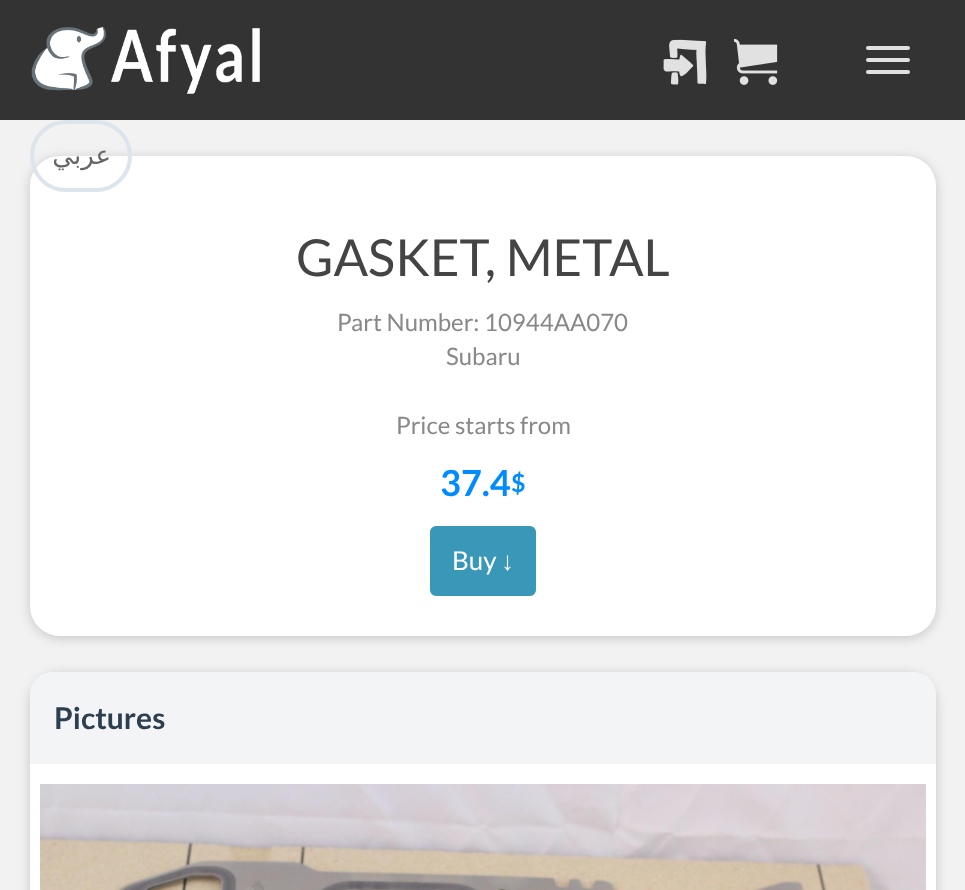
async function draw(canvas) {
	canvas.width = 965;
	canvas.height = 890;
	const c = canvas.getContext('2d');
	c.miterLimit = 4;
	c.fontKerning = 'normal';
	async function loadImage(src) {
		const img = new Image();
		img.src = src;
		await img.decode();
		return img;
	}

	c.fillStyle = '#333';
	c.fillRect(0, 0, 965, 890);
	c.drawImage(await loadImage('img1.png'), 31, 27, 229, 67);
	c.drawImage(await loadImage('img2.png'), 663, 39, 44, 46);
	c.drawImage(await loadImage('img3.png'), 734, 38, 44, 47);
	c.fillStyle = '#e1e1e1';
	c.beginPath();
	c.roundRect(866, 46, 44, 4, 2);
	c.fill();
	c.beginPath();
	c.roundRect(866, 58, 44, 4, 2);
	c.fill();
	c.beginPath();
	c.roundRect(866, 70, 44, 4, 2);
	c.fill();
	c.fillStyle = '#f2f2f2';
	c.fillRect(0, 120, 965, 770);
	c.fillStyle = '#0000002e';
	c.filter = 'blur(6px)';
	c.beginPath();
	c.roundRect(30, 158, 906, 480, 30);
	c.fill();
	c.filter = 'none';
	c.fillStyle = '#fff';
	c.beginPath();
	c.roundRect(30, 156, 906, 480, 30);
	c.fill();
	c.beginPath();
	c.roundRect(32, 122, 98, 68, 34);
	c.strokeStyle = '#dce4ec';
	c.lineWidth = 4;
	c.stroke();
	c.direction = 'rtl';
	c.font = '26px DejaVu Sans';
	c.fillStyle = '#666';
	c.fillText('عربي', 111, 164);
	c.direction = 'ltr';
	c.font = '51px Lato';
	c.fillStyle = '#444';
	c.fillText('GASKET, METAL', 296, 276);
	c.font = '24px Lato';
	c.fillStyle = '#888';
	for (const [text, x, y] of [
		['Part Number: 10944AA070', 337, 331],
		['Subaru', 446, 365],
		['Price starts from', 396, 434],
	]) {
		c.fillText(text, x, y);
	}
	c.font = 'bold 36px Lato';
	c.fillStyle = '#008bff';
	c.fillText('37.4', 440, 496);
	c.font = 'bold 25px Lato';
	c.fillText('$', 511, 492);
	c.fillStyle = '#3997b8';
	c.beginPath();
	c.roundRect(432, 528, 102, 66, 4);
	c.fill();
	c.strokeStyle = '#3997b8';
	c.stroke();
	c.font = '26px Lato';
	c.fillStyle = '#fff';
	c.fillText('Buy', 452, 570);
	c.font = '26px Liberation Sans';
	c.fillText('↓', 501, 570);
	c.fillStyle = '#0000002e';
	c.filter = 'blur(6px)';
	c.beginPath();
	c.roundRect(30, 674, 906, 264, 30);
	c.fill();
	c.filter = 'none';
	c.fillStyle = '#fff';
	c.beginPath();
	c.roundRect(30, 672, 906, 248, 30);
	c.fill();
	c.fillStyle = '#f2f4f5';
	c.beginPath();
	c.roundRect(30, 672, 906, 92, [22, 22, 0, 0]);
	c.fill();
	c.font = 'bold 30px Lato';
	c.fillStyle = '#2c3e50';
	c.fillText('Pictures', 54, 729);
	c.drawImage(await loadImage('img4.png'), 40, 784, 886, 106);
}

draw(document.querySelector('canvas'));
